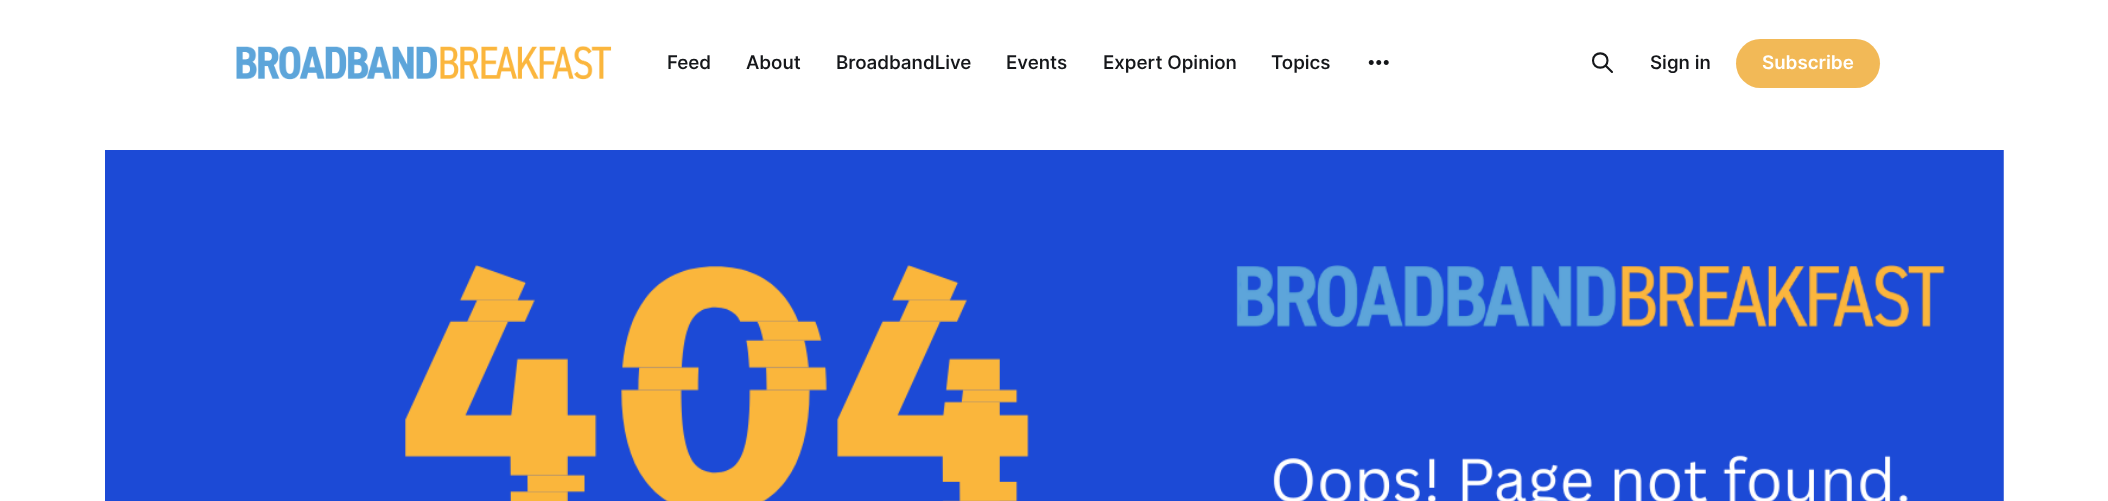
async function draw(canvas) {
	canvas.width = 2108;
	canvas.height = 501;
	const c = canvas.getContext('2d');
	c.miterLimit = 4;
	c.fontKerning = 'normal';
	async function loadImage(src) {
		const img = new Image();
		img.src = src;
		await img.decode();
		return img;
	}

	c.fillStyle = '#fff';
	c.fillRect(0, 0, 2108, 501);
	c.drawImage(await loadImage('img1.png'), 236, 46, 376, 34);
	c.font = '500 18.75px Inter';
	c.fillStyle = '#15171a';
	for (const [text, x, y] of [
		['Feed', 667, 69],
		['About', 746, 69],
		['BroadbandLive', 836, 69],
		['Events', 1006, 69],
		['Expert Opinion', 1103, 69],
		['Topics', 1271, 69],
	]) {
		c.fillText(text, x, y);
	}
	c.drawImage(await loadImage('img2.png'), 1368, 60, 21, 5);
	c.beginPath();
	c.moveTo(1612, 72);
	c.lineTo(1605.5, 65.5);
	c.moveTo(1607.5, 60.5);
	c.bezierCurveTo(1607.5, 70, 1593, 70, 1593, 60.5);
	c.bezierCurveTo(1593, 51, 1607.5, 51, 1607.5, 60.5);
	c.closePath();
	c.strokeStyle = '#15171a';
	c.lineWidth = 2.1;
	c.lineCap = 'round';
	c.lineJoin = 'round';
	c.stroke();
	c.fillText('Sign in', 1650, 69);
	c.fillStyle = '#f2b957';
	c.beginPath();
	c.roundRect(1736, 39, 144, 49, 24.5);
	c.fill();
	c.font = '600 18.75px Inter';
	c.fillStyle = '#fff';
	c.fillText('Subscribe', 1762, 69);
	c.drawImage(await loadImage('img3.png'), 105, 150, 1899, 351);
}

draw(document.querySelector('canvas'));
